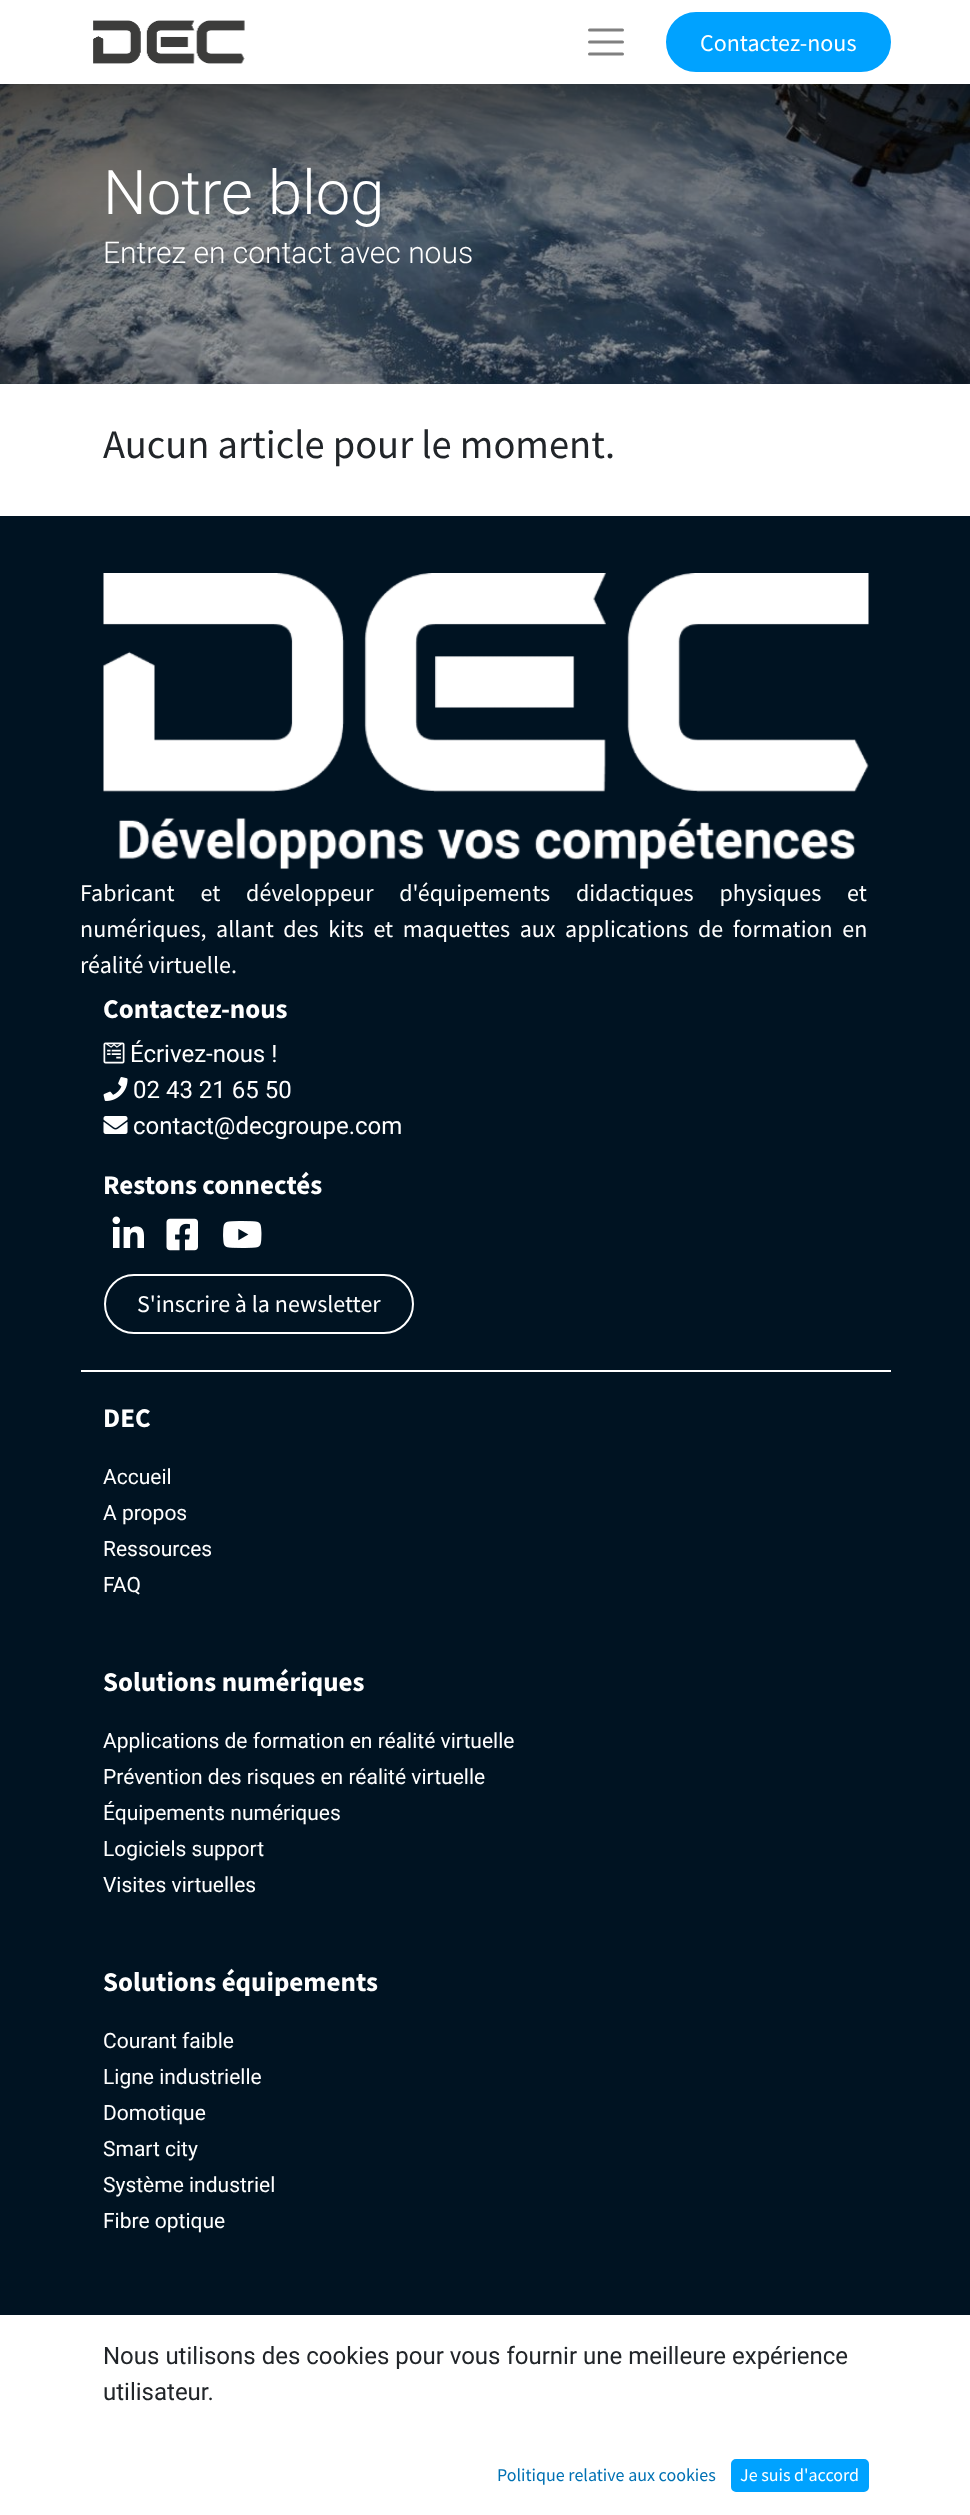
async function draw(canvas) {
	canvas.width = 970;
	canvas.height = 2515;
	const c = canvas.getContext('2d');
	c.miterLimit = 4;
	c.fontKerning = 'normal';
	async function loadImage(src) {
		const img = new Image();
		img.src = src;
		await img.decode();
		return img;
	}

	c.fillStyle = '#fff';
	c.fillRect(0, 0, 970, 2515);
	c.drawImage(await loadImage('img1.png'), 93, 20, 152, 44);
	c.beginPath();
	c.moveTo(589.5, 30);
	c.lineTo(622.5, 30);
	c.moveTo(589.5, 42);
	c.lineTo(622.5, 42);
	c.moveTo(589.5, 54);
	c.lineTo(622.5, 54);
	c.strokeStyle = '#808080';
	c.lineWidth = 3;
	c.lineCap = 'round';
	c.stroke();
	c.fillStyle = '#00a2ff';
	c.beginPath();
	c.roundRect(667, 13, 223, 58, 29);
	c.fill();
	c.strokeStyle = '#00a2ff';
	c.lineWidth = 2;
	c.stroke();
	c.font = '24px Source Sans Pro';
	c.fillStyle = '#fff';
	c.fillText('Contactez-nous', 700, 51);
	c.drawImage(await loadImage('img2.png'), 0, 84, 970, 300);
	c.font = '300 61.5px Roboto';
	c.fillText('Notre blog', 103, 214);
	c.font = '300 30px Roboto';
	c.fillText('Entrez en contact avec nous', 103, 263);
	c.font = '40.5px Source Sans Pro';
	c.fillStyle = '#212529';
	c.fillText('Aucun article pour le moment.', 103, 458);
	c.fillStyle = '#001322';
	c.fillRect(0, 516, 970, 1799);
	c.fillStyle = '#fff';
	c.fillRect(81, 1370, 810, 2);
	c.drawImage(await loadImage('img3.png'), 103, 573, 766, 297);
	c.wordSpacing = '21px';
	c.font = '24px Source Sans Pro';
	c.fillText('Fabricant et développeur d\'équipements didactiques physiques et', 80, 901);
	c.wordSpacing = '4.75px';
	c.fillText('numériques, allant des kits et maquettes aux applications de formation en', 80, 937);
	c.wordSpacing = '0px';
	c.fillText('réalité virtuelle.', 80, 973);
	c.font = 'bold 27px Source Sans Pro';
	c.fillText('Contactez-nous', 103, 1018);
	c.drawImage(await loadImage('img4.png'), 103, 1042, 22, 22);
	c.font = '24px Roboto';
	c.fillText('Écrivez-nous !', 130, 1062);
	c.drawImage(await loadImage('img5.png'), 103, 1077, 25, 24);
	c.fillText('02 43 21 65 50', 133, 1098);
	c.drawImage(await loadImage('img6.png'), 103, 1116, 25, 18);
	c.fillText('contact@decgroupe.com', 133, 1134);
	c.font = 'bold 27px Source Sans Pro';
	c.fillText('Restons connectés', 103, 1194);
	c.drawImage(await loadImage('img7.png'), 112, 1216, 32, 32);
	c.drawImage(await loadImage('img8.png'), 166, 1218, 32, 33);
	c.drawImage(await loadImage('img9.png'), 223, 1221, 39, 27);
	c.beginPath();
	c.roundRect(105, 1275, 308, 58, 29);
	c.strokeStyle = '#fff';
	c.stroke();
	c.font = '24px Source Sans Pro';
	c.fillText('S\'inscrire à la newsletter', 137, 1312);
	c.font = 'bold 27px Source Sans Pro';
	c.fillText('DEC', 103, 1427);
	c.font = '21px Roboto';
	for (const [text, x, y] of [
		['Accueil', 103, 1484],
		['A propos', 103, 1520],
		['Ressources', 103, 1556],
		['FAQ', 103, 1592],
	]) {
		c.fillText(text, x, y);
	}
	c.font = 'bold 27px Source Sans Pro';
	c.fillText('Solutions numériques', 103, 1691);
	c.font = '21px Roboto';
	for (const [text, x, y] of [
		['Applications de formation en réalité virtuelle', 103, 1748],
		['Prévention des risques en réalité virtuelle', 103, 1784],
		['Équipements numériques', 103, 1820],
		['Logiciels support', 103, 1856],
		['Visites virtuelles', 103, 1892],
	]) {
		c.fillText(text, x, y);
	}
	c.font = 'bold 27px Source Sans Pro';
	c.fillText('Solutions équipements', 103, 1991);
	c.font = '21px Roboto';
	for (const [text, x, y] of [
		['Courant faible', 103, 2048],
		['Ligne industrielle', 103, 2084],
		['Domotique', 103, 2120],
		['Smart city', 103, 2156],
		['Système industriel', 103, 2192],
		['Fibre optique', 103, 2228],
	]) {
		c.fillText(text, x, y);
	}
	c.font = '24px Roboto';
	c.fillStyle = '#212529';
	c.fillText('Nous utilisons des cookies pour vous fournir une meilleure expérience', 103, 2364);
	c.fillText('utilisateur.', 103, 2400);
	c.font = '18px Source Sans Pro';
	c.fillStyle = '#0071b3';
	c.fillText('Politique relative aux cookies', 497, 2481);
	c.fillStyle = '#00a2ff';
	c.beginPath();
	c.roundRect(732, 2460, 136, 31, 4);
	c.fill();
	c.strokeStyle = '#00a2ff';
	c.stroke();
	c.fillStyle = '#fff';
	c.fillText('Je suis d\'accord', 740, 2481);
}

draw(document.querySelector('canvas'));
